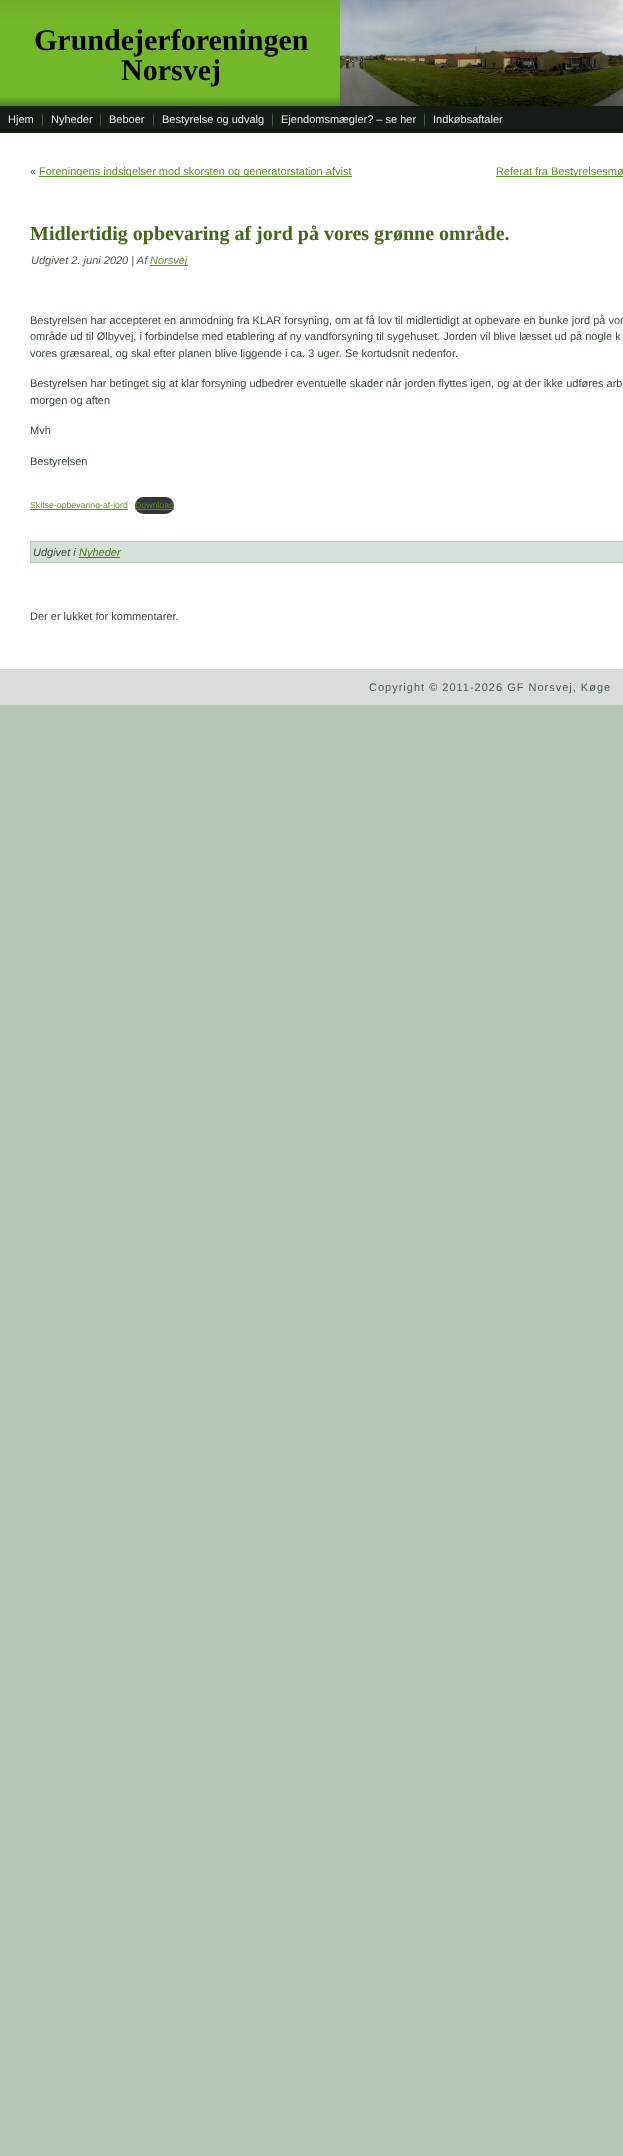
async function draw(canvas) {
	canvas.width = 623;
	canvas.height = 2156;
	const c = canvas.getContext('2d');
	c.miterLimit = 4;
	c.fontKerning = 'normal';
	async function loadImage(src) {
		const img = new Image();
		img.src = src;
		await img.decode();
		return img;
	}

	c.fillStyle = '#b5c5b6';
	c.fillRect(0, 0, 623, 2156);
	c.drawImage(await loadImage('img1.png'), 0, 0, 340, 106);
	c.drawImage(await loadImage('img2.png'), 340, 0, 283, 106);
	c.font = 'bold 30px Liberation Serif';
	c.fillStyle = '#000';
	c.fillText('Grundejerforeningen', 34, 50);
	c.fillText('Norsvej', 121, 80);
	c.fillStyle = '#161d17';
	c.fillRect(0, 106, 623, 27);
	c.font = '11px Liberation Sans';
	c.fillStyle = '#e8ede9';
	c.fillText('Hjem', 8, 123);
	c.drawImage(await loadImage('img3.png'), 42, 112, 1, 16);
	c.fillText('Nyheder', 51, 123);
	c.drawImage(await loadImage('img3.png'), 100, 112, 1, 16);
	c.fillText('Beboer', 109, 123);
	c.drawImage(await loadImage('img3.png'), 153, 112, 1, 16);
	c.fillText('Bestyrelse og udvalg', 162, 123);
	c.drawImage(await loadImage('img3.png'), 272, 112, 1, 16);
	c.fillText('Ejendomsmægler? – se her', 281, 123);
	c.drawImage(await loadImage('img3.png'), 424, 112, 1, 16);
	c.fillText('Indkøbsaftaler', 433, 123);
	c.fillStyle = '#fff';
	c.fillRect(0, 133, 623, 536);
	c.fillStyle = '#384739';
	c.fillText('«', 30, 175);
	c.fillStyle = '#5b9121';
	c.fillRect(39, 176, 313, 1);
	c.fillText('Foreningens indsigelser mod skorsten og generatorstation afvist', 39, 175);
	c.fillRect(496, 176, 127, 1);
	c.fillText('Referat fra Bestyrelsesmø', 496, 175);
	c.font = 'bold 20px Liberation Serif';
	c.fillStyle = '#416818';
	c.fillText('Midlertidig opbevaring af jord på vores grønne område.', 30, 240);
	c.font = 'italic 11px Liberation Sans';
	c.fillStyle = '#485b49';
	c.fillText('Udgivet 2. juni 2020 | Af', 31, 264);
	c.fillStyle = '#5b9121';
	c.fillRect(150, 265, 38, 1);
	c.fillText('Norsvej', 150, 264);
	c.font = '11px Liberation Sans';
	c.fillStyle = '#384739';
	for (const [text, x, y] of [
		['Bestyrelsen har accepteret en anmodning fra KLAR forsyning, om at få lov til midlertidigt at opbevare en bunke jord på vor', 30, 324],
		['område ud til Ølbyvej, i forbindelse med etablering af ny vandforsyning til sygehuset. Jorden vil blive læsset ud på nogle k', 30, 340],
		['vores græsareal, og skal efter planen blive liggende i ca. 3 uger. Se kortudsnit nedenfor.', 30, 357],
		['Bestyrelsen har betinget sig at klar forsyning udbedrer eventuelle skader når jorden flyttes igen, og at der ikke udføres arb', 30, 387],
		['morgen og aften', 30, 404],
		['Mvh', 30, 434],
		['Bestyrelsen', 30, 465],
	]) {
		c.fillText(text, x, y);
	}
	c.fillStyle = '#5b9121';
	c.fillRect(30, 509, 98, 1);
	c.font = '8.75px Liberation Sans';
	c.fillText('Skitse-opbevaring-af-jord', 30, 508);
	c.fillStyle = '#32373c';
	c.beginPath();
	c.roundRect(135, 497, 39, 17, 8.5);
	c.fill();
	c.fillStyle = '#5b9121';
	c.fillText('Download', 135, 508);
	c.fillRect(135, 509, 39, 1);
	c.fillStyle = '#d7e0d8';
	c.beginPath();
	c.rect(30.5, 541.5, 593, 21);
	c.fill();
	c.strokeStyle = '#b5c5b6';
	c.stroke();
	c.font = 'italic 11px Liberation Sans';
	c.fillStyle = '#384739';
	c.fillText('Udgivet i', 33, 556);
	c.fillStyle = '#4c791b';
	c.fillRect(79, 557, 41, 1);
	c.fillText('Nyheder', 79, 556);
	c.font = '11px Liberation Sans';
	c.fillStyle = '#384739';
	c.fillText('Der er lukket for kommentarer.', 30, 620);
	c.fillStyle = '#d9ddda';
	c.fillRect(0, 669, 623, 36);
	c.letterSpacing = '1px';
	c.fillStyle = '#485b49';
	c.fillText('Copyright © 2011-2026 GF Norsvej, Køge', 369, 691);
}

draw(document.querySelector('canvas'));
